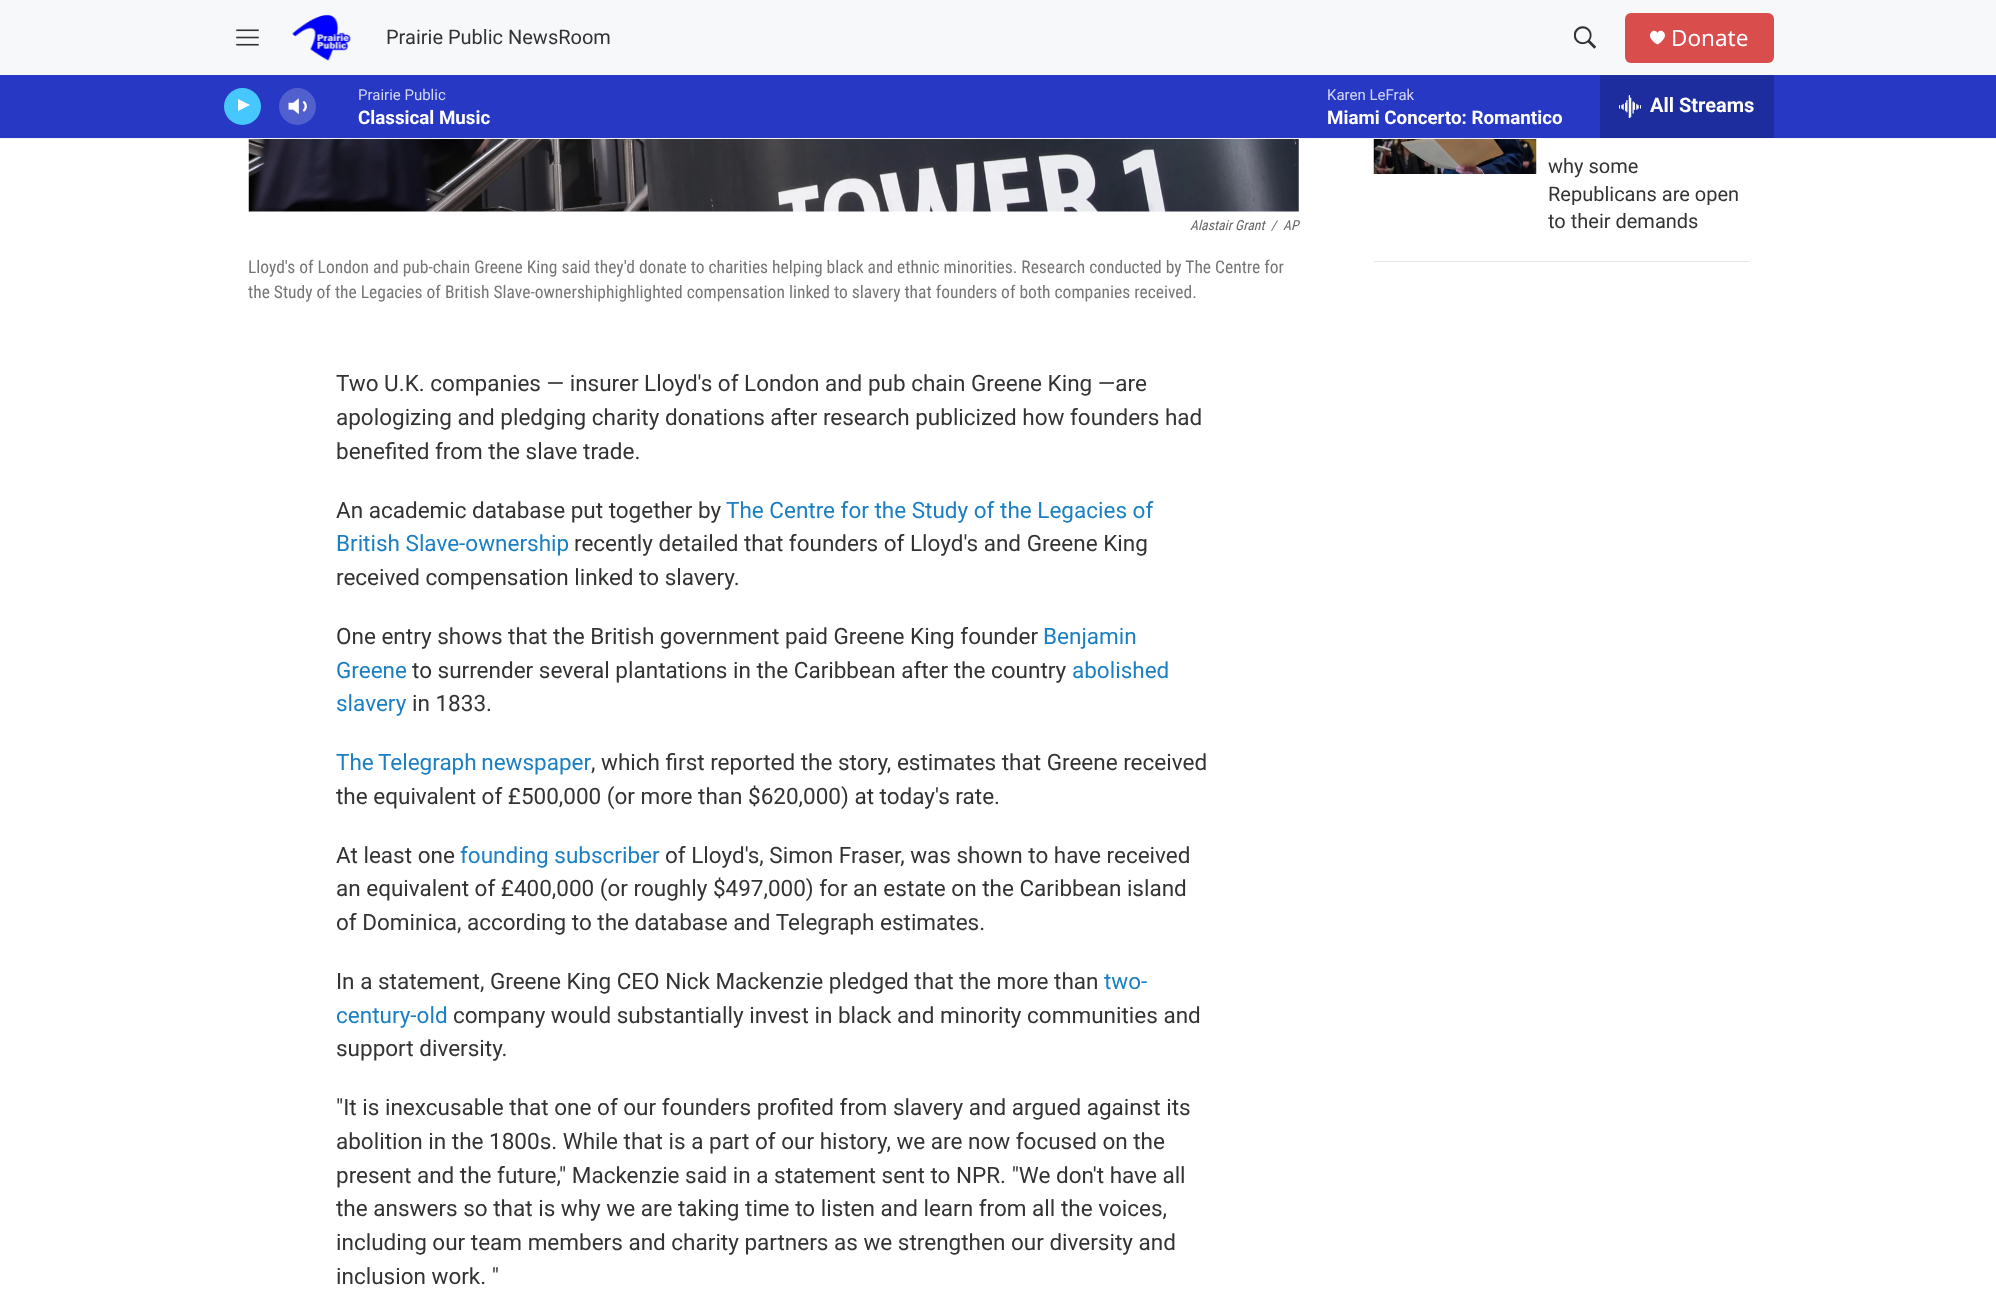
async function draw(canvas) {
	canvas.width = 1996;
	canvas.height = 1295;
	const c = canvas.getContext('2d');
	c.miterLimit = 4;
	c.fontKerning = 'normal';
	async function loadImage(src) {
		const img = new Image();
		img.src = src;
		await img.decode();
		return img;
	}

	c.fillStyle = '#fff';
	c.fillRect(0, 0, 1996, 1295);
	c.fillStyle = '#f6f8fa';
	c.fillRect(0, 0, 1996, 75);
	c.fillStyle = '#f5f5f5';
	c.fillRect(0, 138, 1996, 1);
	c.drawImage(await loadImage('img1.png'), 236, 29, 23, 17);
	c.drawImage(await loadImage('img2.png'), 292, 14, 59, 47);
	c.font = '20px Roboto';
	c.fillStyle = '#333';
	c.fillText('Prairie Public NewsRoom', 386, 44);
	c.drawImage(await loadImage('img3.png'), 1574, 26, 22, 23);
	c.fillStyle = '#d94d4c';
	c.beginPath();
	c.roundRect(1625, 13, 149, 50, 6);
	c.fill();
	c.fillStyle = '#fff';
	c.beginPath();
	c.moveTo(1657.5, 33);
	c.bezierCurveTo(1655, 26.5, 1642, 35, 1657.5, 44.5);
	c.bezierCurveTo(1673, 35, 1660, 26.5, 1657.5, 33);
	c.closePath();
	c.fill();
	c.font = '22.5px Noto Sans';
	c.fillText('Donate', 1671, 46);
	c.fillStyle = '#2638c4';
	c.fillRect(0, 75, 1996, 63);
	c.fillStyle = '#46c8ff';
	c.beginPath();
	c.arc(242.5, 106.5, 18.5, 0, 2 * Math.PI);
	c.fill();
	c.fillStyle = '#fff';
	c.beginPath();
	c.moveTo(238, 99);
	c.lineTo(250, 105);
	c.lineTo(238, 111);
	c.closePath();
	c.fill();
	c.drawImage(await loadImage('img4.png'), 288, 98, 19, 17);
	c.fillStyle = '#ffffff33';
	c.beginPath();
	c.arc(297.5, 106.5, 18.5, 0, 2 * Math.PI);
	c.fill();
	c.font = '15px Roboto';
	c.fillStyle = '#d4d7f3';
	c.fillText('Prairie Public', 358, 100);
	c.font = 'bold 18.75px Roboto';
	c.fillStyle = '#fff';
	c.fillText('Classical Music', 358, 124);
	c.font = '15px Roboto';
	c.fillStyle = '#d4d7f3';
	c.fillText('Karen LeFrak', 1327, 100);
	c.font = 'bold 18.75px Roboto';
	c.fillStyle = '#fff';
	c.fillText('Miami Concerto: Romantico', 1327, 124);
	c.fillStyle = '#1e2d9d';
	c.fillRect(1600, 75, 174, 63);
	c.drawImage(await loadImage('img5.png'), 1619, 95, 22, 23);
	c.font = 'bold 20px Roboto';
	c.fillStyle = '#fff';
	c.fillText('All Streams', 1650, 112);
	c.fillStyle = '#e6e6e6';
	c.fillRect(1374, 261, 375, 1);
	c.drawImage(await loadImage('img6.png'), 1373, 139, 164, 35);
	c.font = '20px Roboto';
	c.fillStyle = '#333';
	for (const [text, x, y] of [
		['why some', 1548, 173],
		['Republicans are open', 1548, 201],
		['to their demands', 1548, 228],
	]) {
		c.fillText(text, x, y);
	}
	c.drawImage(await loadImage('img7.png'), 248, 139, 1051, 73);
	c.font = 'italic 13.75px Roboto Condensed';
	c.fillStyle = '#666';
	for (const [text, x, y] of [
		['Alastair Grant', 1190, 230],
		['/', 1271, 230],
		['AP', 1283, 230],
	]) {
		c.fillText(text, x, y);
	}
	c.font = '17.5px Roboto Condensed';
	c.fillStyle = '#767676';
	c.fillText('Lloyd\'s of London and pub-chain Greene King said they\'d donate to charities helping black and ethnic minorities. Research conducted by The Centre for', 248, 273);
	c.fillText('the Study of the Legacies of British Slave-ownershiphighlighted compensation linked to slavery that founders of both companies received.', 248, 298);
	c.font = '22.5px Roboto';
	c.fillStyle = '#333';
	for (const [text, x, y] of [
		['Two U.K. companies — insurer Lloyd\'s of London and pub chain Greene King —are', 336, 391],
		['apologizing and pledging charity donations after research publicized how founders had', 336, 425],
		['benefited from the slave trade.', 336, 459],
		['An academic database put together by', 336, 518],
	]) {
		c.fillText(text, x, y);
	}
	c.fillStyle = '#1a7fc3';
	c.fillText('The Centre for the Study of the Legacies of', 726, 518);
	c.fillText('British Slave-ownership', 336, 551);
	c.fillStyle = '#333';
	for (const [text, x, y] of [
		['recently detailed that founders of Lloyd\'s and Greene King', 574, 551],
		['received compensation linked to slavery.', 336, 585],
		['One entry shows that the British government paid Greene King founder', 336, 644],
	]) {
		c.fillText(text, x, y);
	}
	c.fillStyle = '#1a7fc3';
	c.fillText('Benjamin', 1043, 644);
	c.fillText('Greene', 336, 678);
	c.fillStyle = '#333';
	c.fillText('to surrender several plantations in the Caribbean after the country', 412, 678);
	c.fillStyle = '#1a7fc3';
	c.fillText('abolished', 1072, 678);
	c.fillText('slavery', 336, 711);
	c.fillStyle = '#333';
	c.fillText('in 1833.', 412, 711);
	c.wordSpacing = '-1px';
	c.fillStyle = '#1a7fc3';
	c.fillText('The Telegraph newspaper', 336, 770);
	c.wordSpacing = '0px';
	c.fillStyle = '#333';
	for (const [text, x, y] of [
		[', which first reported the story, estimates that Greene received', 591, 770],
		['the equivalent of £500,000 (or more than $620,000) at today\'s rate.', 336, 804],
		['At least one', 336, 863],
	]) {
		c.fillText(text, x, y);
	}
	c.fillStyle = '#1a7fc3';
	c.fillText('founding subscriber', 460, 863);
	c.fillStyle = '#333';
	for (const [text, x, y] of [
		['of Lloyd\'s, Simon Fraser, was shown to have received', 665, 863],
		['an equivalent of £400,000 (or roughly $497,000) for an estate on the Caribbean island', 336, 896],
		['of Dominica, according to the database and Telegraph estimates.', 336, 930],
		['In a statement, Greene King CEO Nick Mackenzie pledged that the more than', 336, 989],
	]) {
		c.fillText(text, x, y);
	}
	c.fillStyle = '#1a7fc3';
	c.fillText('two-', 1104, 989);
	c.fillText('century-old', 336, 1023);
	c.fillStyle = '#333';
	for (const [text, x, y] of [
		['company would substantially invest in black and minority communities and', 453, 1023],
		['support diversity.', 336, 1056],
		['"It is inexcusable that one of our founders profited from slavery and argued against its', 336, 1115],
		['abolition in the 1800s. While that is a part of our history, we are now focused on the', 336, 1149],
		['present and the future," Mackenzie said in a statement sent to NPR. "We don\'t have all', 336, 1183],
		['the answers so that is why we are taking time to listen and learn from all the voices,', 336, 1216],
		['including our team members and charity partners as we strengthen our diversity and', 336, 1250],
		['inclusion work. "', 336, 1284],
	]) {
		c.fillText(text, x, y);
	}
}

draw(document.querySelector('canvas'));
